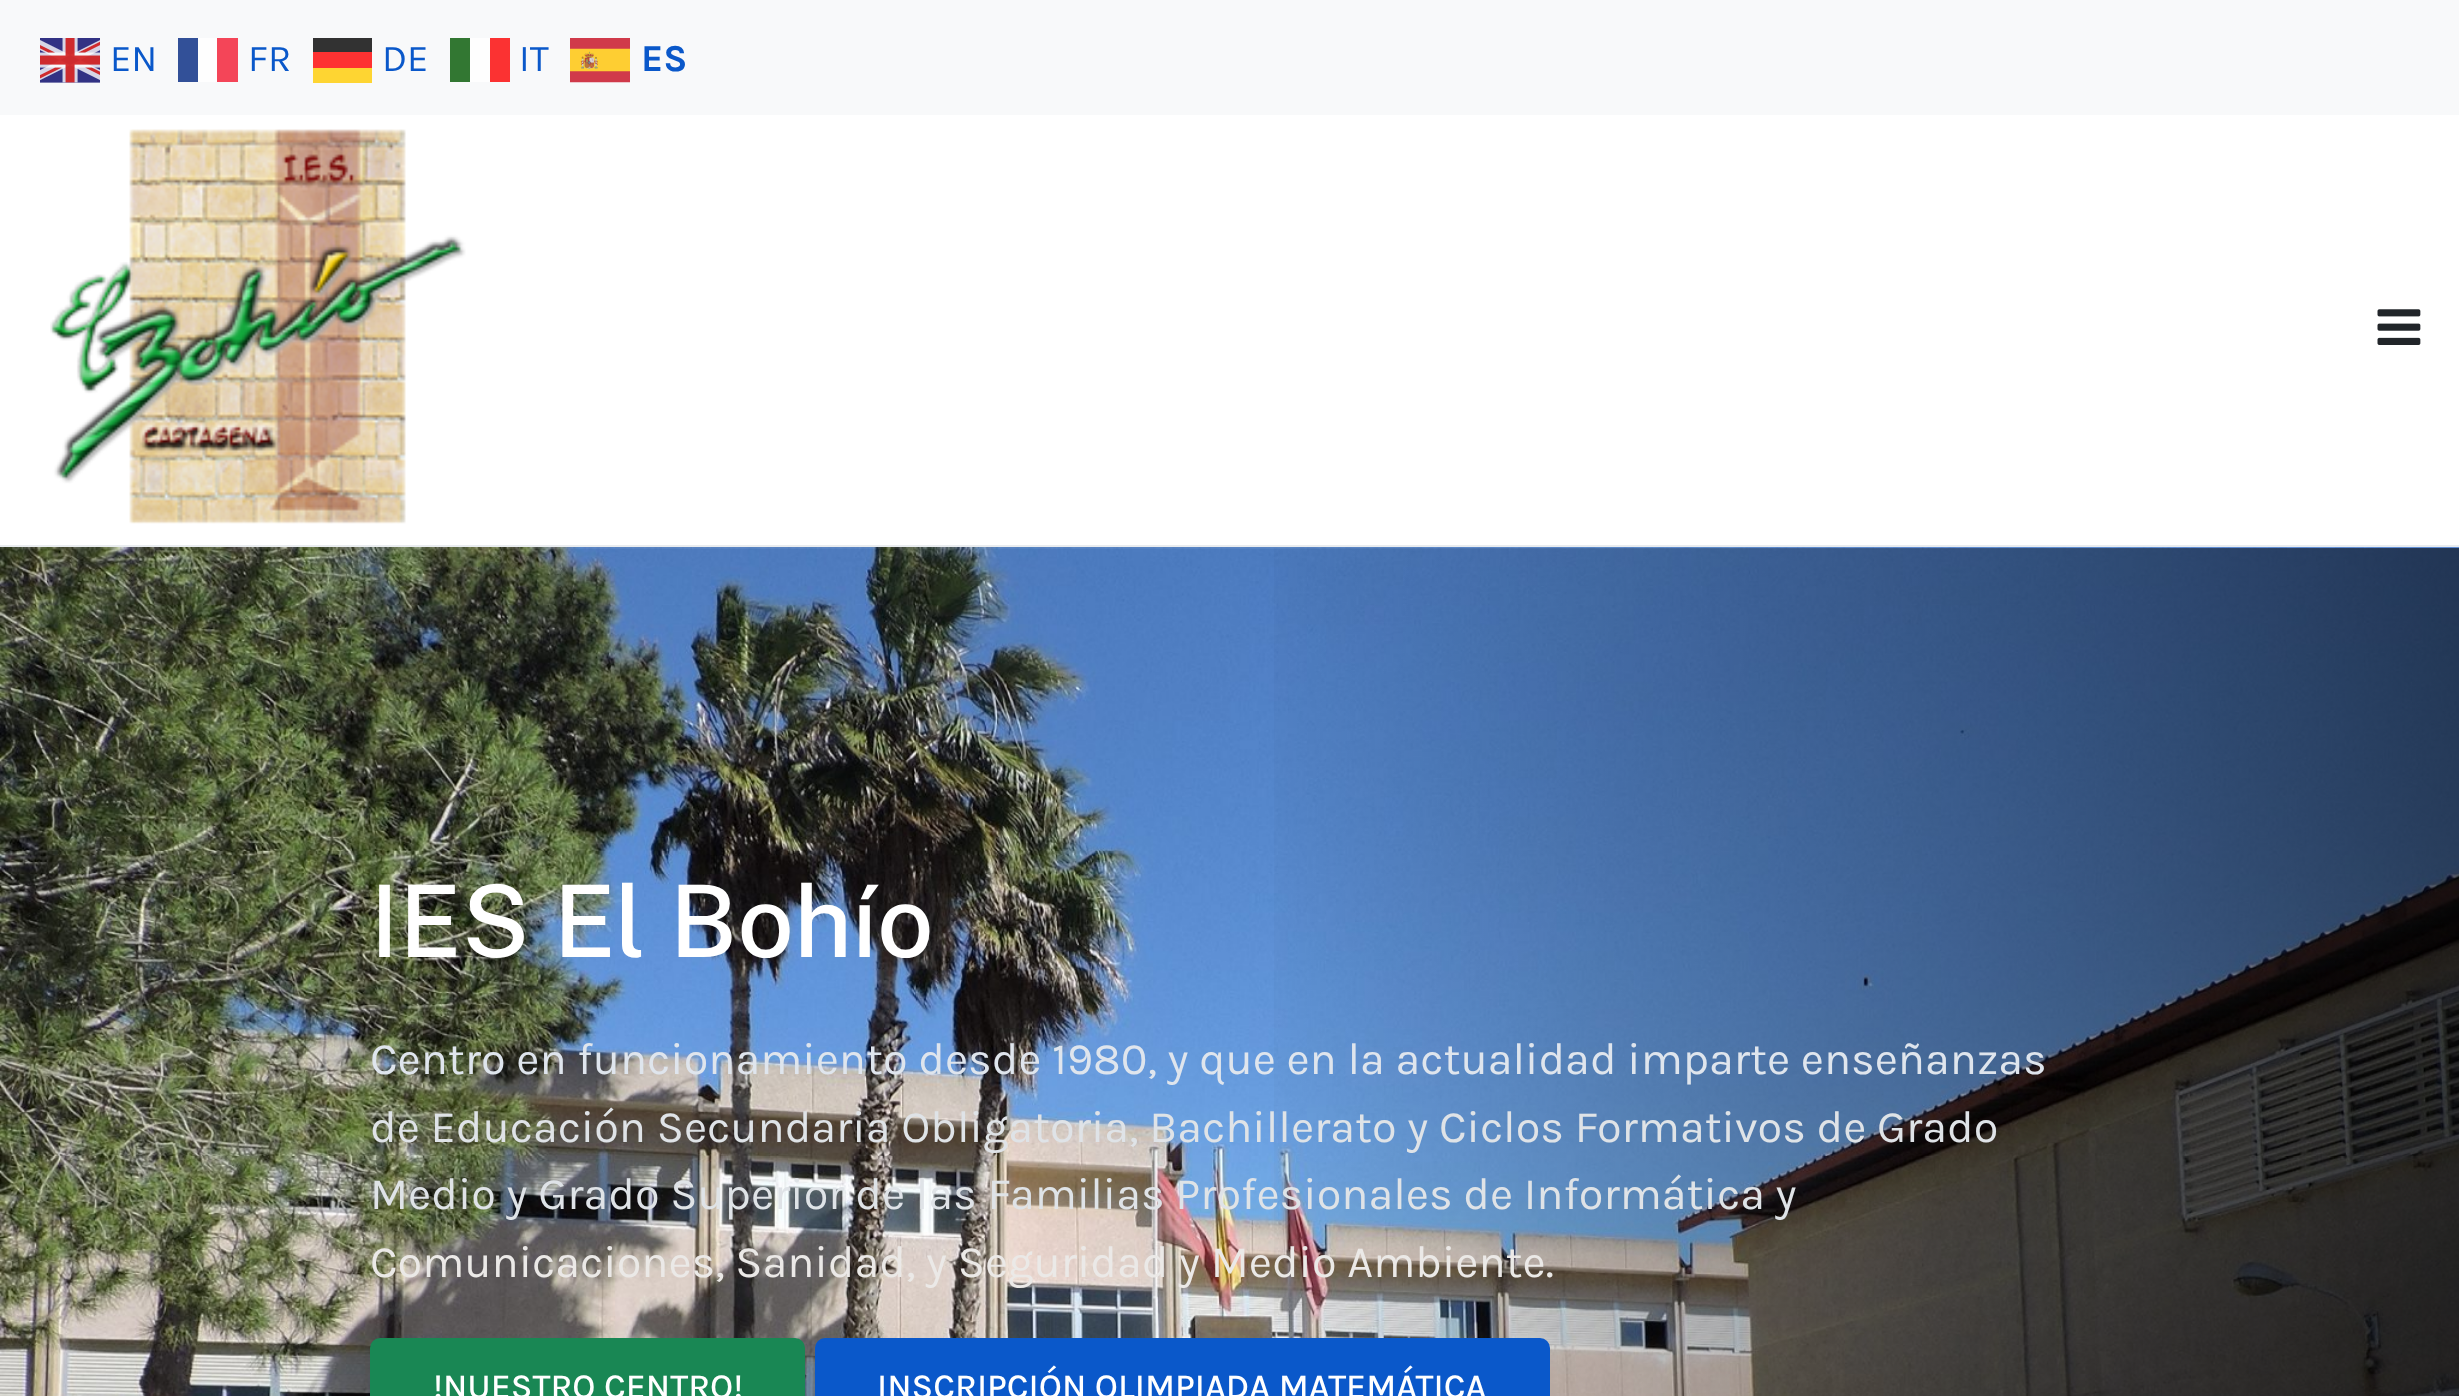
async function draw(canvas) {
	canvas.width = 2459;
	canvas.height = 1396;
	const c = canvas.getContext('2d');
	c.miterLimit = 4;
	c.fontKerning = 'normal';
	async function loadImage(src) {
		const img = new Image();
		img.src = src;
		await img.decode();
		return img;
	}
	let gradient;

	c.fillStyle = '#fff';
	c.fillRect(0, 0, 2459, 1396);
	c.fillStyle = '#f8f9fa';
	c.fillRect(0, 0, 2459, 115);
	c.drawImage(await loadImage('img1.png'), 40, 38, 60, 45);
	c.font = '38px Karla';
	c.fillStyle = '#0a58ca';
	c.fillText('EN', 110, 71);
	c.fillText('FR', 248, 71);
	for (const [x, y, w, h, color] of [
		[198, 38, 19, 44, '#fefefe'],
		[178, 38, 20, 44, '#325098'],
		[217, 38, 21, 44, '#f44558'],
	]) {
		c.fillStyle = color;
		c.fillRect(x, y, w, h);
	}
	c.fillStyle = '#0a58ca';
	c.fillText('DE', 382, 71);
	for (const [x, y, w, h, color] of [
		[313, 68, 59, 15, '#fed532'],
		[313, 38, 59, 14, '#323232'],
		[313, 52, 59, 16, '#fe3232'],
	]) {
		c.fillStyle = color;
		c.fillRect(x, y, w, h);
	}
	c.fillStyle = '#0a58ca';
	c.fillText('IT', 519, 71);
	for (const [x, y, w, h, color] of [
		[470, 38, 20, 44, '#fefefe'],
		[450, 38, 20, 44, '#327732'],
		[490, 38, 20, 44, '#fb3232'],
	]) {
		c.fillStyle = color;
		c.fillRect(x, y, w, h);
	}
	c.drawImage(await loadImage('img2.png'), 570, 38, 60, 45);
	c.font = 'bold 38px Karla';
	c.fillStyle = '#0a58ca';
	c.fillText('ES', 641, 71);
	c.fillStyle = '#e9ecef';
	c.fillRect(0, 545, 2459, 3);
	c.drawImage(await loadImage('img3.png'), 50, 129, 416, 395);
	c.drawImage(await loadImage('img4.png'), 2377, 309, 44, 36);
	c.drawImage(await loadImage('img5.png'), 0, 547, 2459, 849);
	gradient = c.createLinearGradient(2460, 1148, 1230, 1148);
	gradient.addColorStop(0, '#00000099');
	gradient.addColorStop(1, '#00000000');
	c.fillStyle = gradient;
	c.fillRect(1274, 548, 1185, 848);
	c.font = '500 100px Public Sans';
	c.fillStyle = '#fff';
	c.fillText('IES El Bohío', 370, 957);
	c.font = '45px Karla';
	c.fillStyle = '#dfe5ed';
	c.fillText('Centro en funcionamiento desde 1980, y que en la actualidad imparte enseñanzas', 370, 1074);
	c.fillStyle = '#dfe3e7';
	c.fillText('de Educación Secundaria Obligatoria, Bachillerato y Ciclos Formativos de Grado', 370, 1142);
	c.fillText('Medio y Grado Superior de las Familias Profesionales de Informática y', 370, 1209);
	c.fillStyle = '#ebe9e7';
	c.fillText('Comunicaciones, Sanidad, y Seguridad y Medio Ambiente.', 370, 1277);
	c.fillStyle = '#198754';
	c.beginPath();
	c.roundRect(371.5, 1339.5, 432, 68, 8.5);
	c.fill();
	c.strokeStyle = '#198754';
	c.lineWidth = 3;
	c.stroke();
	c.font = '500 35px Karla';
	c.fillStyle = '#fff';
	c.fillText('!NUESTRO CENTRO!', 433, 1398);
	c.fillStyle = '#0a58ca';
	c.beginPath();
	c.roundRect(816.5, 1339.5, 732, 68, 8.5);
	c.fill();
	c.strokeStyle = '#0a58ca';
	c.stroke();
	c.fillStyle = '#fff';
	c.fillText('INSCRIPCIÓN OLIMPIADA MATEMÁTICA', 877, 1398);
}

draw(document.querySelector('canvas'));
